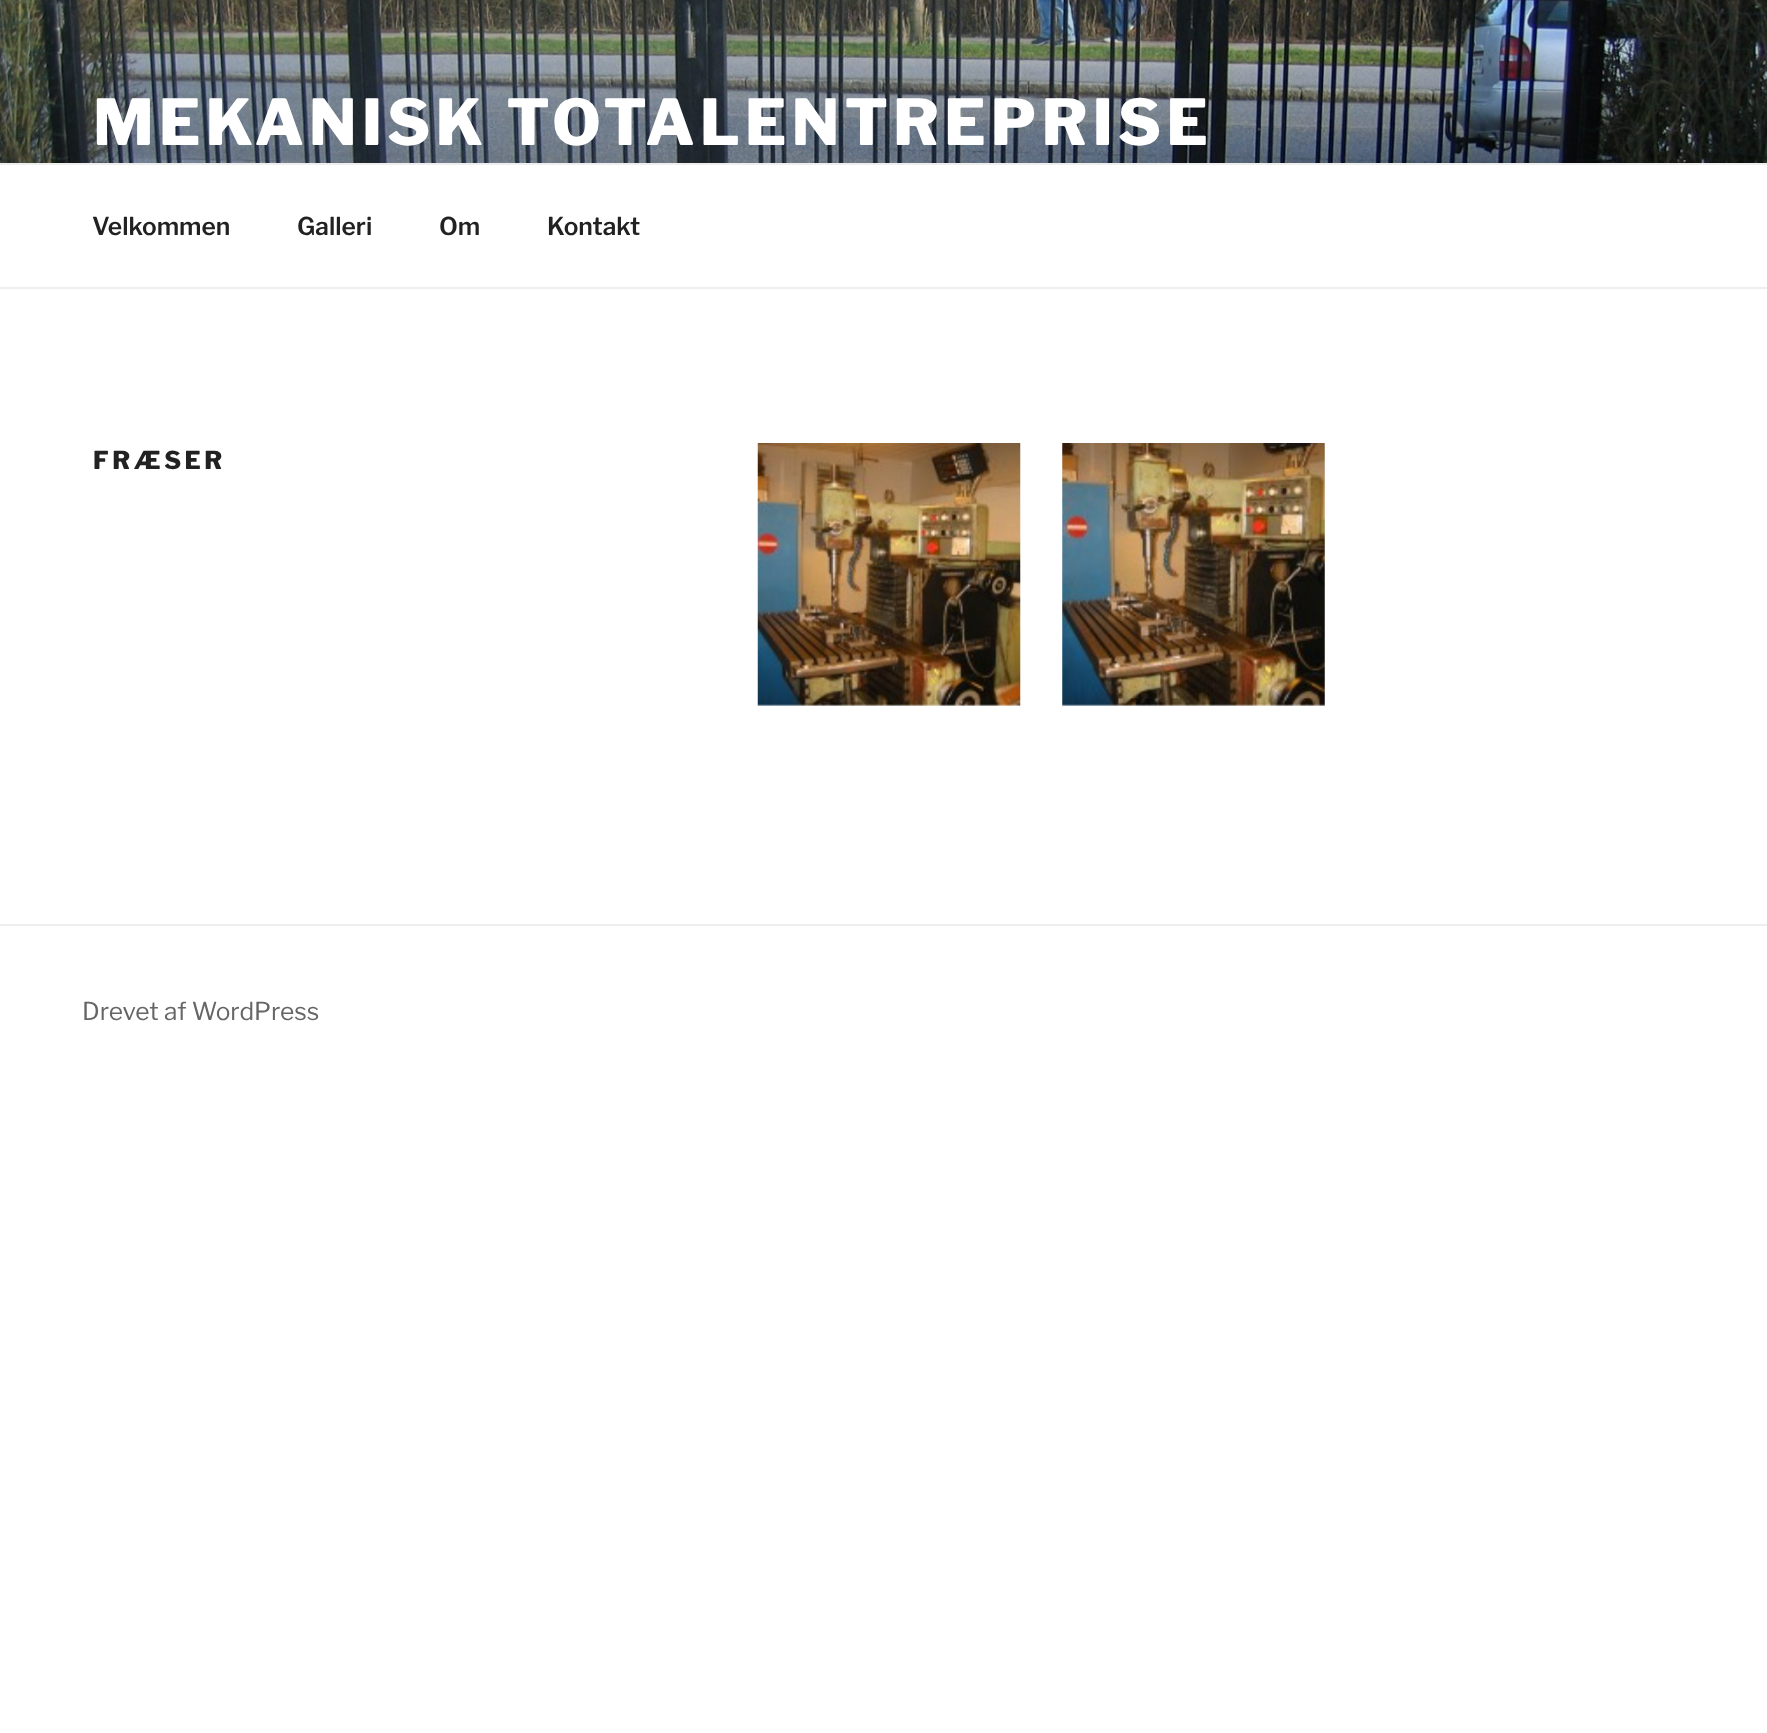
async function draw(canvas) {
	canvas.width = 1767;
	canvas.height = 1733;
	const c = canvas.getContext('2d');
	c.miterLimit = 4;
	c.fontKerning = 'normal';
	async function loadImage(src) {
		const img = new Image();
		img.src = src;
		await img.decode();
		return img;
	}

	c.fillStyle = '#fff';
	c.fillRect(0, 0, 1767, 1733);
	c.drawImage(await loadImage('img1.png'), 0, 0, 1767, 163);
	c.letterSpacing = '5px';
	c.font = '100 63px Libre Franklin';
	c.fillText('MEKANISK TOTALENTREPRISE', 93, 145);
	c.fillStyle = '#eee';
	c.fillRect(0, 163, 1767, 2);
	c.fillRect(0, 287, 1767, 2);
	c.letterSpacing = '0px';
	c.font = '100 24.5px "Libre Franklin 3"';
	c.fillStyle = '#222';
	for (const [text, x, y] of [
		['Velkommen', 92, 235],
		['Galleri', 297, 235],
		['Om', 439, 235],
		['Kontakt', 547, 235],
	]) {
		c.fillText(text, x, y);
	}
	c.letterSpacing = '3.5px';
	c.font = '100 24.5px Libre Franklin';
	c.fillText('FRÆSER', 93, 469);
	c.drawImage(await loadImage('img2.png'), 757, 443, 264, 263);
	c.drawImage(await loadImage('img3.png'), 1062, 443, 263, 263);
	c.fillStyle = '#eee';
	c.fillRect(0, 924, 1767, 2);
	c.letterSpacing = '0px';
	c.font = '100 24.5px "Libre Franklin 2"';
	c.fillStyle = '#666';
	c.fillText('Drevet af WordPress', 82, 1020);
}

draw(document.querySelector('canvas'));
